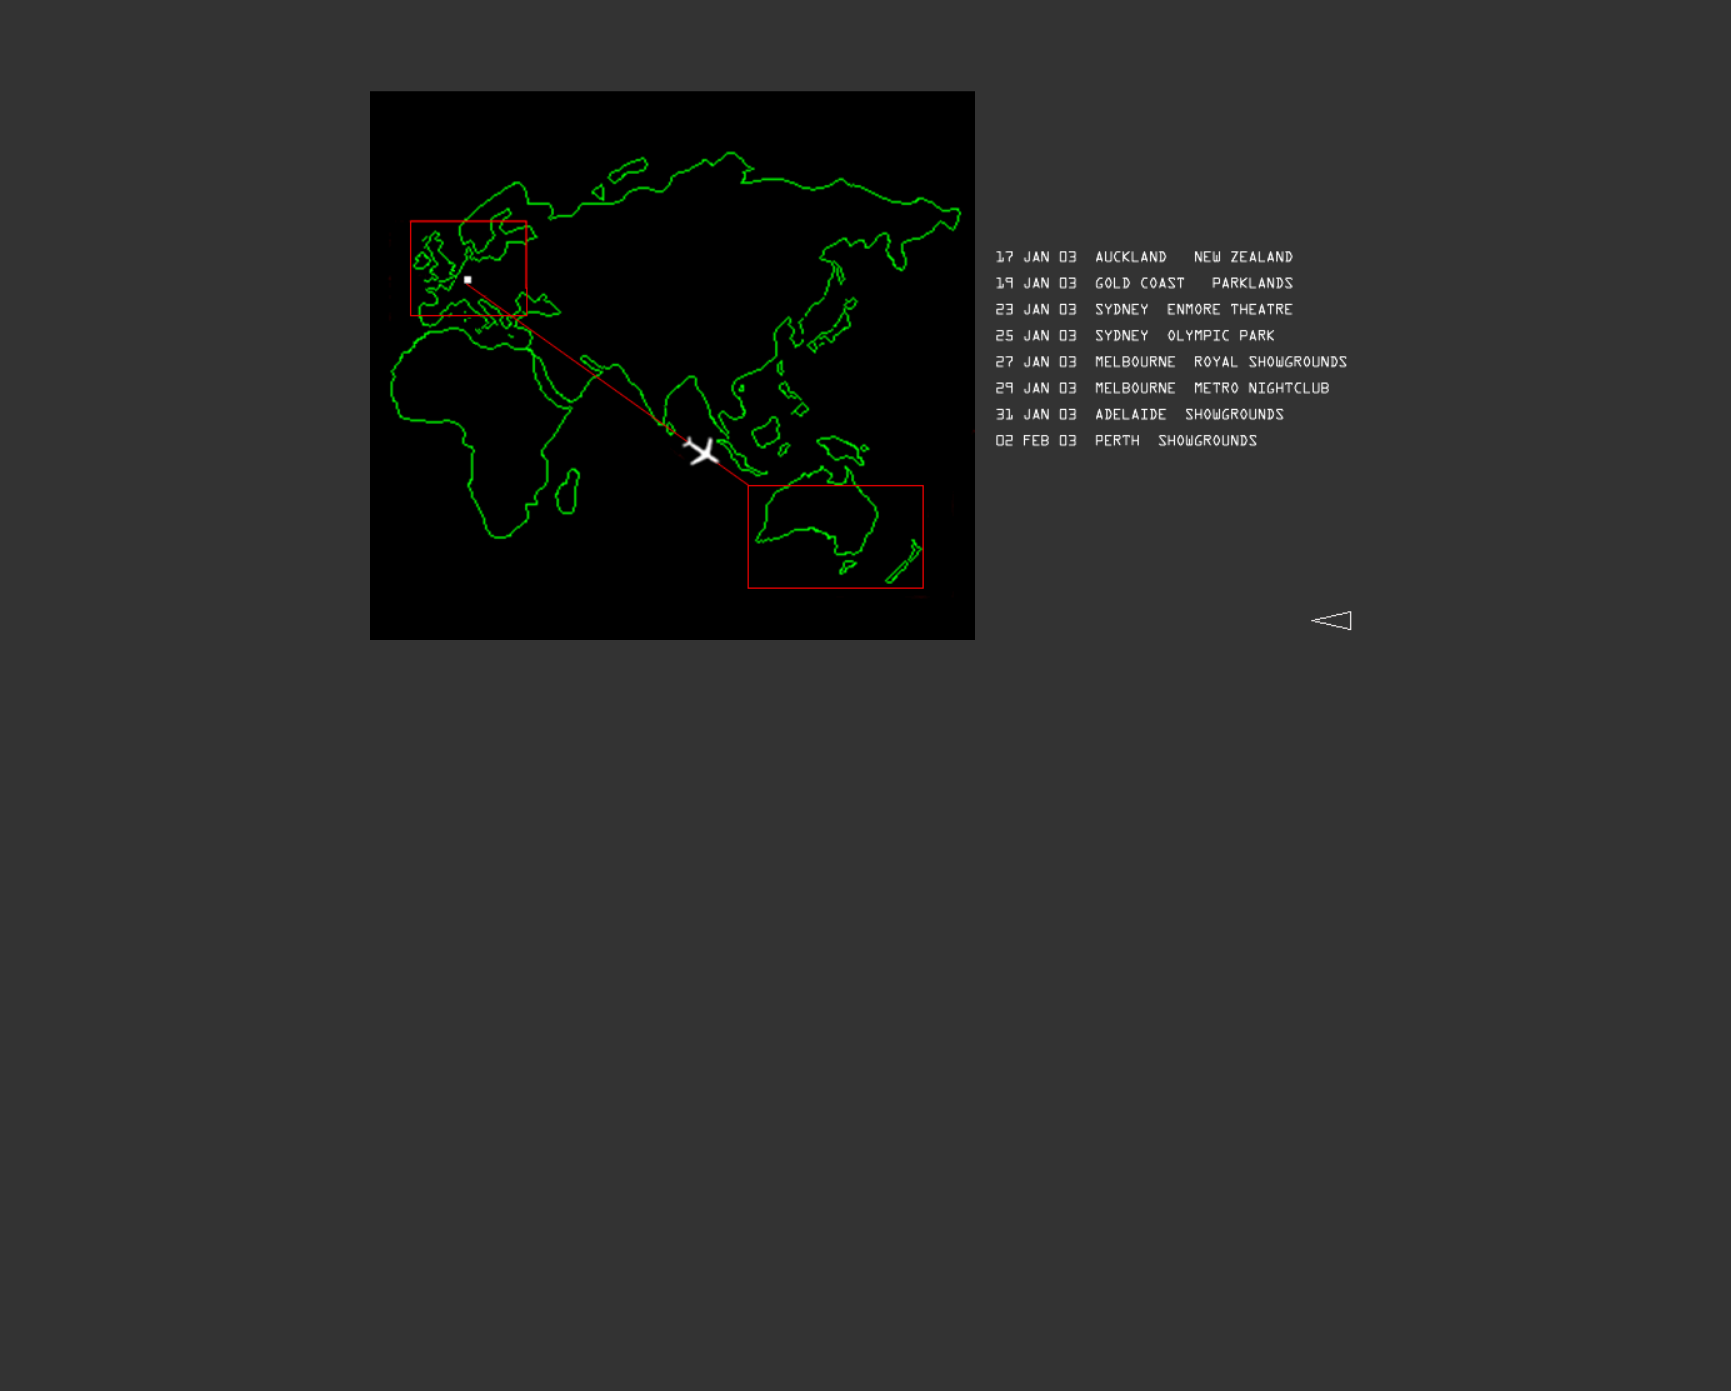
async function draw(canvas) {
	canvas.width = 1731;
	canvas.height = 1391;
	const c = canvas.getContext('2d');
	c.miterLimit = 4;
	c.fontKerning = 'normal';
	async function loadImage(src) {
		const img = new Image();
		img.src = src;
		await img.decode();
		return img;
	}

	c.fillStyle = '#333';
	c.fillRect(0, 0, 1731, 1391);
	c.drawImage(await loadImage('img1.png'), 370, 91, 605, 549);
	c.drawImage(await loadImage('img2.png'), 996, 251, 351, 196);
	c.drawImage(await loadImage('img3.png'), 1311, 611, 41, 20);
}

draw(document.querySelector('canvas'));
